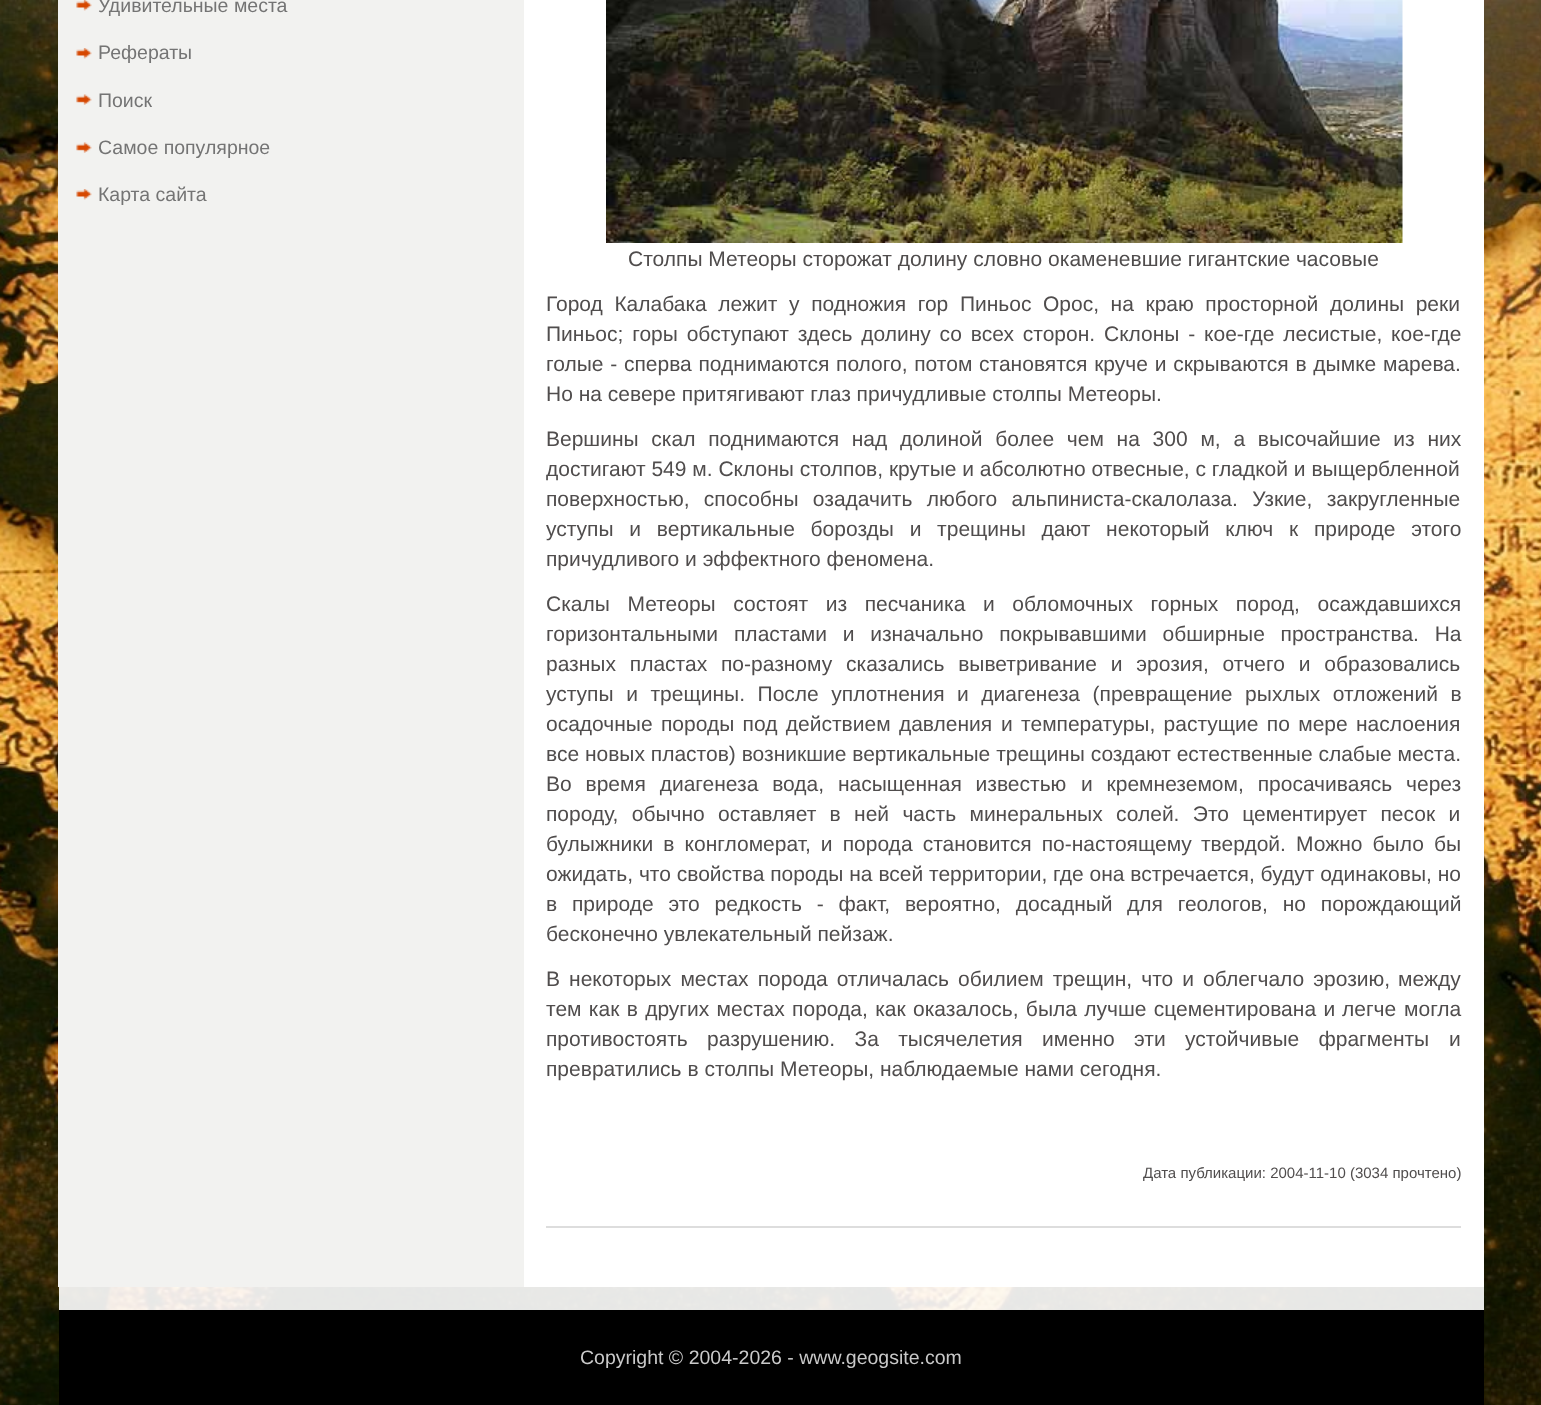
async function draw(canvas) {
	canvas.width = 1541;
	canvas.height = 1405;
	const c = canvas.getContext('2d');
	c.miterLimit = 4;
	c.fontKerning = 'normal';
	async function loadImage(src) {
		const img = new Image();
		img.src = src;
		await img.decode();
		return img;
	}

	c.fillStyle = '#fff';
	c.fillRect(0, 0, 1541, 1405);
	c.drawImage(await loadImage('img1.png'), 0, 0, 1541, 1405);
	c.fillRect(524, 0, 960, 1287);
	c.fillStyle = '#f2f2f0';
	c.fillRect(58, 0, 466, 1287);
	c.drawImage(await loadImage('img2.png'), 76, 0, 16, 11);
	c.font = '19.5px Liberation Sans';
	c.fillStyle = '#747474';
	c.fillText('Удивительные места', 98, 12);
	c.drawImage(await loadImage('img2.png'), 76, 48, 16, 11);
	c.fillText('Рефераты', 98, 59);
	c.drawImage(await loadImage('img3.png'), 76, 94, 16, 11);
	c.fillText('Поиск', 98, 107);
	c.drawImage(await loadImage('img3.png'), 76, 142, 16, 11);
	c.fillText('Самое популярное', 98, 154);
	c.drawImage(await loadImage('img2.png'), 76, 189, 16, 11);
	c.fillText('Карта сайта', 98, 201);
	c.fillStyle = '#ddd';
	c.fillRect(546, 1226, 915, 2);
	c.drawImage(await loadImage('img4.png'), 606, 0, 797, 243);
	c.font = '21px Liberation Sans';
	c.fillStyle = '#504d4d';
	c.fillText('Столпы Метеоры сторожат долину словно окаменевшие гигантские часовые', 628, 266);
	c.wordSpacing = '5.75px';
	c.fillText('Город Калабака лежит у подножия гор Пиньос Орос, на краю просторной долины реки', 546, 311);
	c.wordSpacing = '3px';
	c.fillText('Пиньос; горы обступают здесь долину со всех сторон. Склоны - кое-где лесистые, кое-где', 546, 341);
	c.wordSpacing = '0.9px';
	c.fillText('голые - сперва поднимаются полого, потом становятся круче и скрываются в дымке марева.', 546, 371);
	c.wordSpacing = '0px';
	c.fillText('Но на севере притягивают глаз причудливые столпы Метеоры.', 546, 401);
	c.wordSpacing = '6.9px';
	c.fillText('Вершины скал поднимаются над долиной более чем на 300 м, а высочайшие из них', 546, 446);
	c.wordSpacing = '0px';
	c.fillText('достигают 549 м. Склоны столпов, крутые и абсолютно отвесные, с гладкой и выщербленной', 546, 476);
	c.wordSpacing = '8.5px';
	c.fillText('поверхностью, способны озадачить любого альпиниста-скалолаза. Узкие, закругленные', 546, 506);
	c.wordSpacing = '9.9px';
	c.fillText('уступы и вертикальные борозды и трещины дают некоторый ключ к природе этого', 546, 536);
	c.wordSpacing = '0px';
	c.fillText('причудливого и эффектного феномена.', 546, 566);
	c.wordSpacing = '11.75px';
	c.fillText('Скалы Метеоры состоят из песчаника и обломочных горных пород, осаждавшихся', 546, 611);
	c.wordSpacing = '0px';
	c.fillText('горизонтальными', 546, 641);
	c.wordSpacing = '9.9px';
	c.fillText('пластами и изначально покрывавшими обширные пространства. На', 734, 641);
	c.wordSpacing = '8px';
	c.fillText('разных пластах по-разному', 546, 671);
	c.fillText('сказались выветривание и эрозия, отчего и образовались', 846, 671);
	c.wordSpacing = '6.75px';
	c.fillText('уступы и трещины. После уплотнения', 546, 701);
	c.fillText('и диагенеза (превращение рыхлых отложений в', 957, 701);
	c.wordSpacing = '2.5px';
	c.fillText('осадочные породы под действием давления', 546, 731);
	c.fillText('и температуры, растущие по мере наслоения', 1001, 731);
	c.wordSpacing = '0px';
	c.fillText('все новых пластов) возникшие вертикальные трещины создают естественные слабые места.', 546, 761);
	c.wordSpacing = '8px';
	c.fillText('Во время диагенеза вода, насыщенная известью', 546, 791);
	c.fillText('и кремнеземом, просачиваясь через', 1081, 791);
	c.wordSpacing = '7.5px';
	c.fillText('породу, обычно оставляет в ней часть минеральных', 546, 821);
	c.fillText('солей. Это цементирует песок и', 1116, 821);
	c.wordSpacing = '4.25px';
	c.fillText('булыжники в конгломерат, и порода становится по-настоящему', 546, 851);
	c.fillText('твердой. Можно было бы', 1201, 851);
	c.wordSpacing = '0px';
	c.fillText('ожидать, что свойства породы на всей территории, где она встречается, будут одинаковы, но', 546, 881);
	c.wordSpacing = '9px';
	c.fillText('в природе это редкость - факт, вероятно, досадный', 546, 911);
	c.fillText('для геологов, но порождающий', 1127, 911);
	c.wordSpacing = '0px';
	c.fillText('бесконечно увлекательный пейзаж.', 546, 941);
	c.wordSpacing = '3.25px';
	c.fillText('В некоторых местах порода отличалась обилием трещин, что и облегчало эрозию,', 546, 986);
	c.wordSpacing = '0px';
	c.fillText('между', 1398, 986);
	c.wordSpacing = '1.5px';
	c.fillText('тем как в других местах порода, как оказалось, была лучше сцементирована и', 546, 1016);
	c.wordSpacing = '2px';
	c.fillText('легче могла', 1342, 1016);
	c.wordSpacing = '13.5px';
	c.fillText('противостоять разрушению. За тысячелетия именно эти устойчивые фрагменты', 546, 1046);
	c.wordSpacing = '0px';
	c.fillText('и', 1449, 1046);
	c.fillText('превратились в столпы Метеоры, наблюдаемые нами сегодня.', 546, 1076);
	c.font = '15px Liberation Sans';
	c.fillText('Дата публикации: 2004-11-10 (3034 прочтено)', 1143, 1178);
	c.fillStyle = '#000';
	c.fillRect(59, 1310, 1425, 95);
	c.font = '19.5px Liberation Sans';
	c.fillStyle = '#c9c9c9';
	c.fillText('Copyright © 2004-2026 - www.geogsite.com', 580, 1364);
}

draw(document.querySelector('canvas'));
